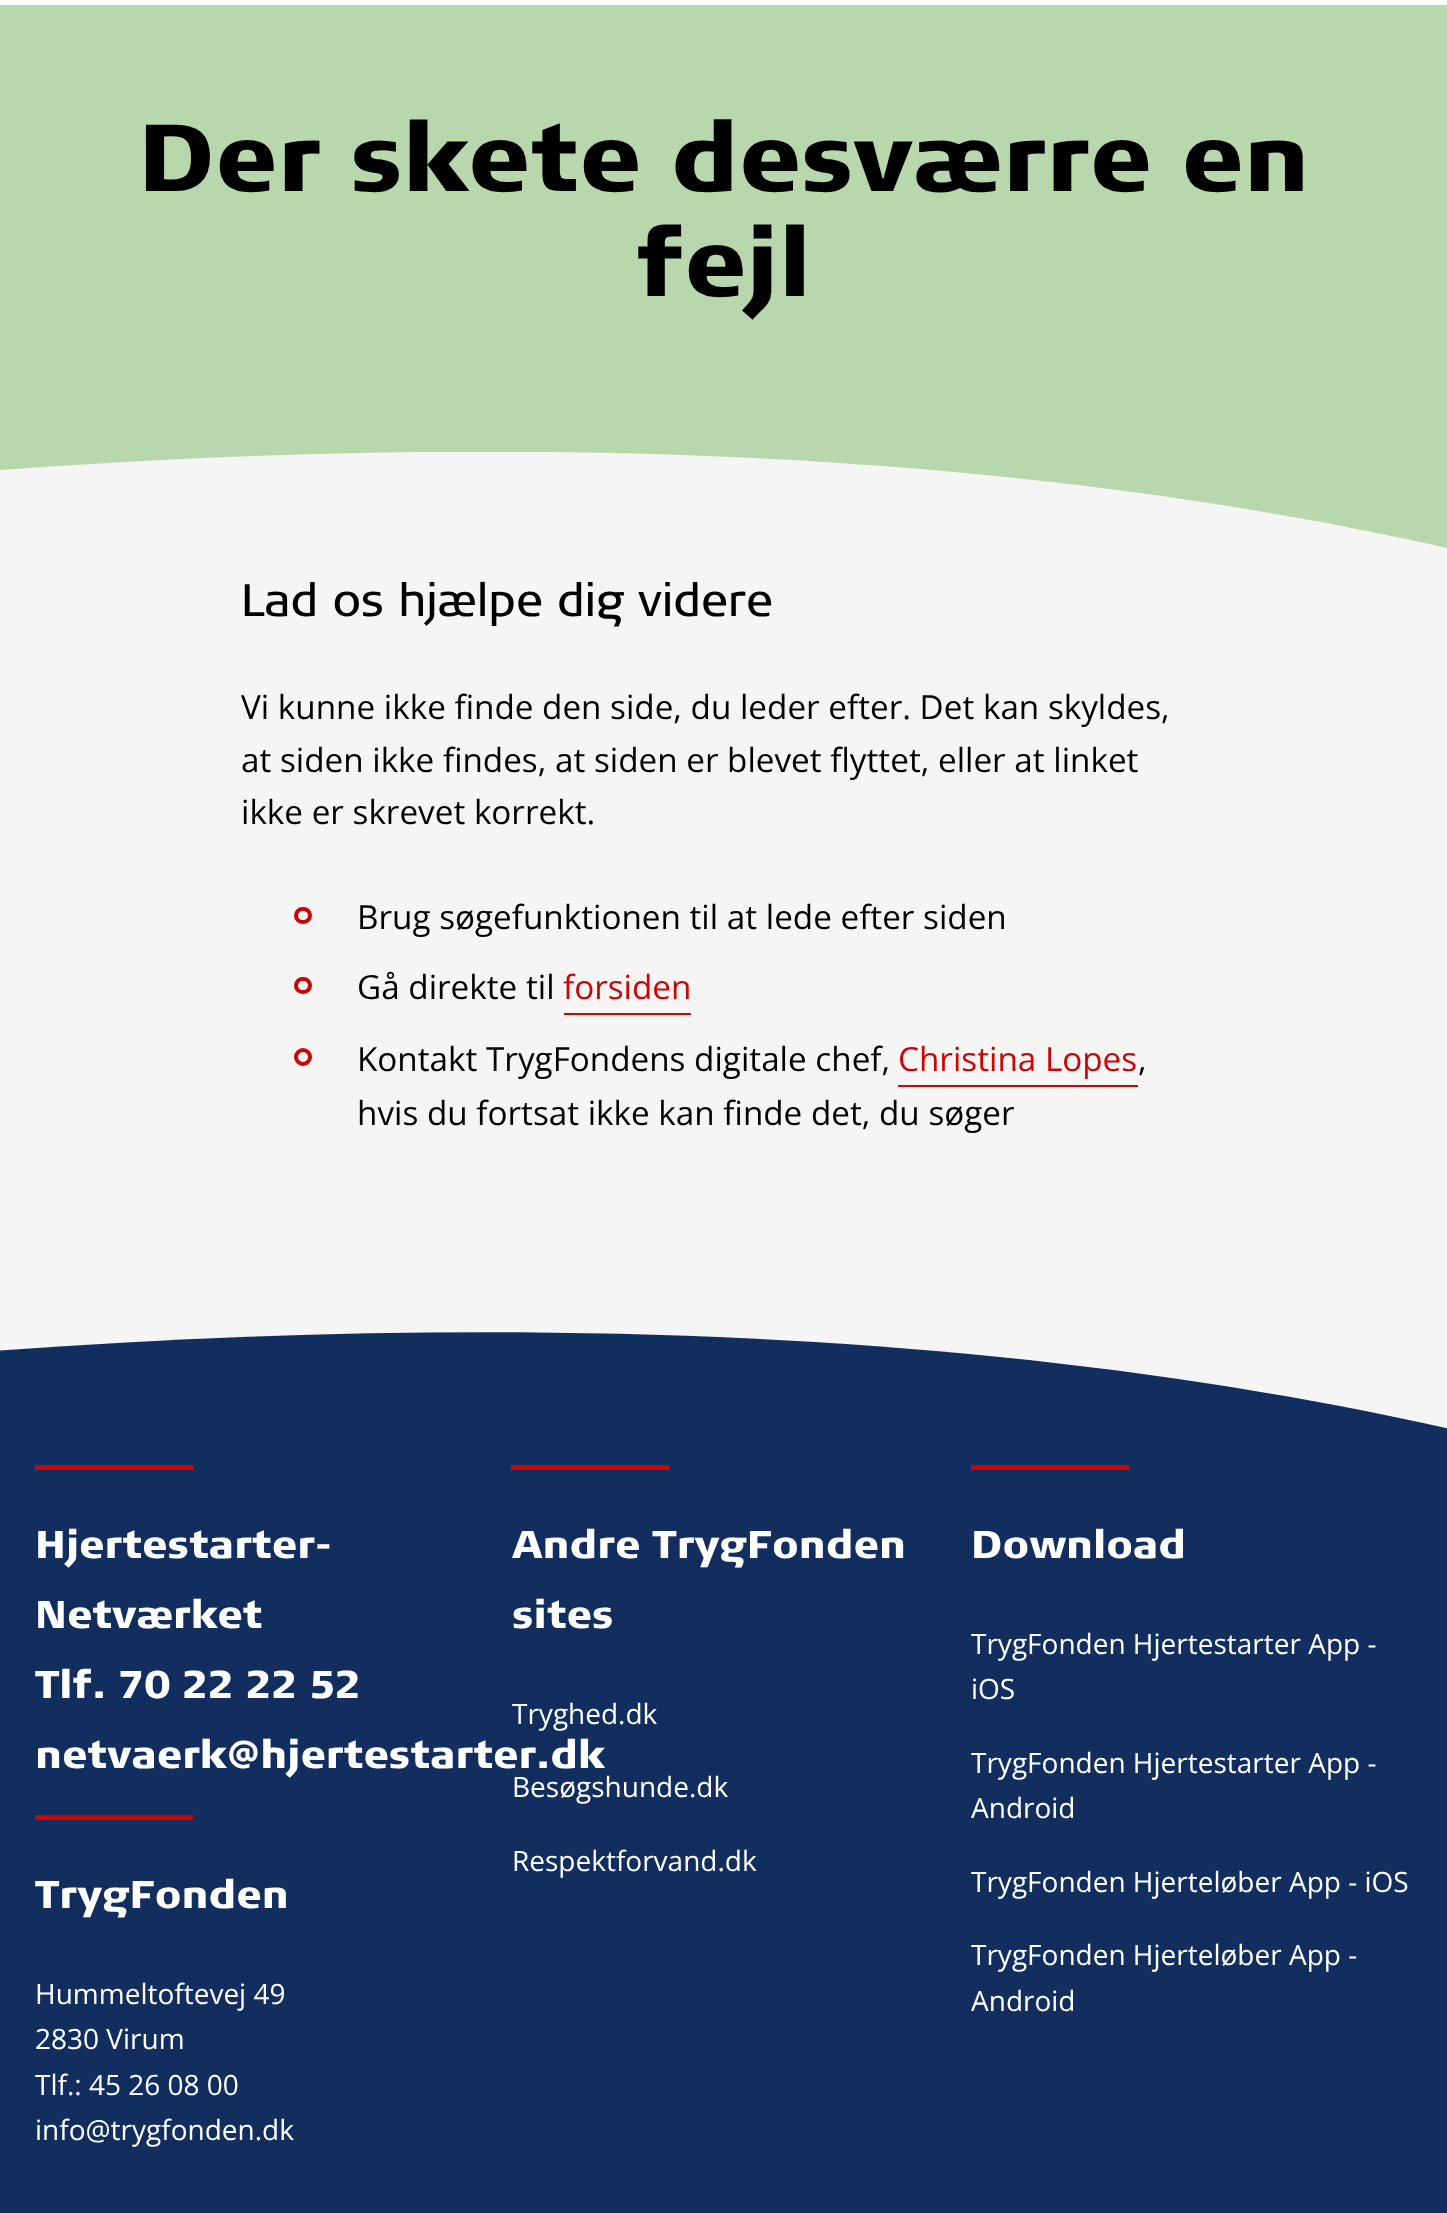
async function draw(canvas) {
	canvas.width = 1447;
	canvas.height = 2213;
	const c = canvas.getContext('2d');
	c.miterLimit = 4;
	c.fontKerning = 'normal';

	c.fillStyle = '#f6f5f5';
	c.fillRect(0, 0, 1447, 2213);
	c.fillStyle = '#fff';
	c.fillRect(0, 0, 1447, 5);
	c.fillStyle = '#b8d7ac';
	c.fillRect(0, 5, 1447, 543);
	c.font = '900 94.5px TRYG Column';
	c.fillStyle = '#000';
	c.fillText('Der skete desværre en', 138, 191);
	c.fillText('fejl', 636, 296);
	c.save();
	c.beginPath();
	c.rect(0, 452, 1447, 287);
	c.clip();
	c.fillStyle = '#f5f5f5';
	c.beginPath();
	c.moveTo(-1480, 698);
	c.bezierCurveTo(714, 212, 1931, 496, 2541, 1106);
	c.bezierCurveTo(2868, 1434, 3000, 1882, 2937, 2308);
	c.lineTo(-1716, 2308);
	c.bezierCurveTo(-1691, 1841, -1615, 1308, -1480, 698);
	c.closePath();
	c.fill();
	c.restore();
	c.font = '45.5px TRYG Column';
	c.fillText('Lad os hjælpe dig videre', 241, 616);
	c.font = '33.25px Open Sans';
	for (const [text, x, y] of [
		['Vi kunne ikke finde den side, du leder efter. Det kan skyldes,', 241, 719],
		['at siden ikke findes, at siden er blevet flyttet, eller at linket', 241, 772],
		['ikke er skrevet korrekt.', 241, 824],
	]) {
		c.fillText(text, x, y);
	}
	c.beginPath();
	c.roundRect(296, 909, 14, 13, 6.5);
	c.strokeStyle = '#ce0303';
	c.lineWidth = 4;
	c.stroke();
	c.fillText('Brug søgefunktionen til at lede efter siden', 357, 929);
	c.beginPath();
	c.roundRect(296, 979, 14, 13, 6.5);
	c.stroke();
	c.fillText('Gå direkte til', 357, 999);
	c.fillStyle = '#ce0303';
	c.fillRect(564, 1013, 127, 2);
	c.fillText('forsiden', 563, 999);
	c.beginPath();
	c.arc(303, 1057, 7, 0, 2 * Math.PI);
	c.stroke();
	c.fillStyle = '#000';
	c.fillText('Kontakt TrygFondens digitale chef,', 357, 1071);
	c.fillStyle = '#ce0303';
	c.fillRect(898, 1085, 240, 2);
	c.fillText('Christina Lopes', 898, 1071);
	c.fillStyle = '#000';
	c.fillText(',', 1138, 1071);
	c.fillText('hvis du fortsat ikke kan finde det, du søger', 357, 1125);
	c.fillStyle = '#122e5f';
	c.beginPath();
	c.moveTo(-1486, 1579);
	c.bezierCurveTo(714, 1092, 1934, 1377, 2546, 1987);
	c.bezierCurveTo(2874, 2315, 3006, 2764, 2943, 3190);
	c.lineTo(-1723, 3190);
	c.bezierCurveTo(-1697, 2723, -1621, 2189, -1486, 1579);
	c.closePath();
	c.fill();
	c.fillStyle = '#ce0303';
	c.fillRect(35, 1465, 158, 5);
	c.font = '900 38.5px TRYG Column';
	c.fillStyle = '#fff';
	for (const [text, x, y] of [
		['Hjertestarter-', 35, 1558],
		['Netværket', 35, 1628],
		['Tlf. 70 22 22 52', 35, 1698],
		['netvaerk@hjertestarter.dk', 35, 1768],
	]) {
		c.fillText(text, x, y);
	}
	c.fillStyle = '#ce0303';
	c.fillRect(35, 1815, 158, 5);
	c.fillStyle = '#fff';
	c.fillText('TrygFonden', 35, 1908);
	c.font = '28px Open Sans';
	for (const [text, x, y] of [
		['Hummeltoftevej 49', 35, 2004],
		['2830 Virum', 35, 2049],
		['Tlf.: 45 26 08 00', 35, 2095],
		['info@trygfonden.dk', 35, 2140],
	]) {
		c.fillText(text, x, y);
	}
	c.fillStyle = '#ce0303';
	c.fillRect(511, 1465, 158, 5);
	c.font = '900 38.5px TRYG Column';
	c.fillStyle = '#fff';
	c.fillText('Andre TrygFonden', 512, 1558);
	c.fillText('sites', 512, 1628);
	c.font = '28px Open Sans';
	for (const [text, x, y] of [
		['Tryghed.dk', 512, 1724],
		['Besøgshunde.dk', 512, 1797],
		['Respektforvand.dk', 512, 1871],
	]) {
		c.fillText(text, x, y);
	}
	c.fillStyle = '#ce0303';
	c.fillRect(971, 1465, 158, 5);
	c.font = '900 38.5px TRYG Column';
	c.fillStyle = '#fff';
	c.fillText('Download', 971, 1558);
	c.font = '28px Open Sans';
	for (const [text, x, y] of [
		['TrygFonden Hjertestarter App -', 971, 1654],
		['iOS', 971, 1699],
		['TrygFonden Hjertestarter App -', 971, 1773],
		['Android', 971, 1818],
		['TrygFonden Hjerteløber App - iOS', 971, 1892],
		['TrygFonden Hjerteløber App -', 971, 1965],
		['Android', 971, 2011],
	]) {
		c.fillText(text, x, y);
	}
}

draw(document.querySelector('canvas'));
